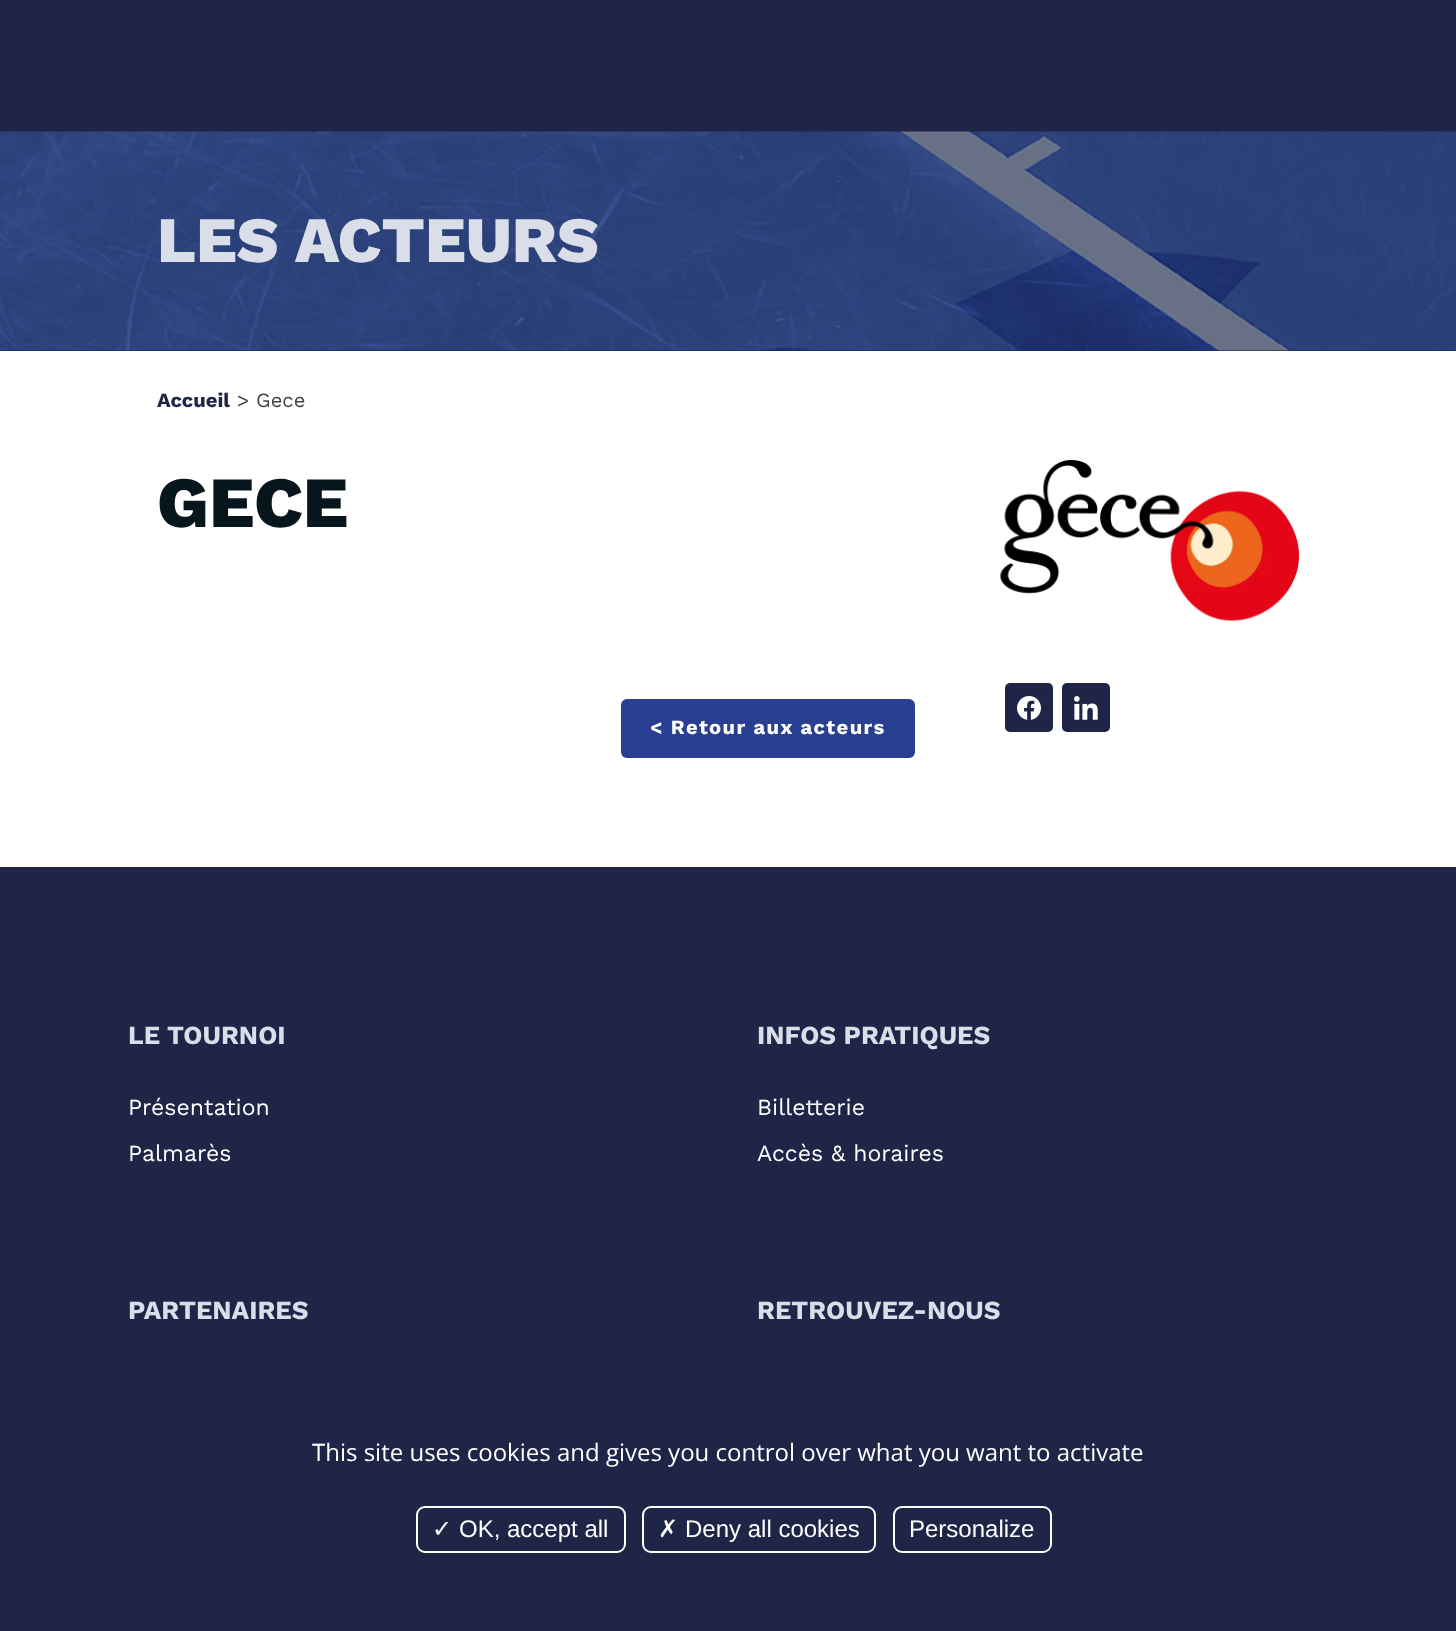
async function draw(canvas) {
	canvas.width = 1456;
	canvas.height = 1631;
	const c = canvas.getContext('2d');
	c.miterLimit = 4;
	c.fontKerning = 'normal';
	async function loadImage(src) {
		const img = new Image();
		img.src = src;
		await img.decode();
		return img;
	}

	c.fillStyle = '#1e2547';
	c.fillRect(0, 0, 1456, 1631);
	c.fillStyle = '#1a294a';
	c.fillRect(0, 132, 1456, 219);
	c.drawImage(await loadImage('img1.png'), 0, 131, 1456, 220);
	c.font = '800 64.75px Work Sans';
	c.fillStyle = '#d9dee9';
	c.fillText('LES ACTEURS', 157, 262);
	c.fillStyle = '#fff';
	c.fillRect(0, 351, 1456, 516);
	c.font = 'bold 20.2px Work Sans';
	c.fillStyle = '#1e2547';
	c.fillText('Accueil', 157, 407);
	c.font = '20.2px Work Sans';
	c.fillStyle = '#444';
	c.fillText('> Gece', 237, 407);
	c.font = '800 72px Work Sans';
	c.fillStyle = '#07151d';
	c.fillText('GECE', 157, 527);
	c.fillStyle = '#293f91';
	c.beginPath();
	c.roundRect(621, 699, 294, 59, 6);
	c.fill();
	c.letterSpacing = '1.4px';
	c.font = 'bold 20.2px Work Sans';
	c.fillStyle = '#fff';
	c.fillText('< Retour aux acteurs', 650, 734);
	c.drawImage(await loadImage('img2.png'), 1000, 460, 299, 161);
	c.fillStyle = '#1e2547';
	c.beginPath();
	c.roundRect(1005, 683, 48, 49, 5);
	c.fill();
	c.drawImage(await loadImage('img3.png'), 1017, 696, 24, 24);
	c.beginPath();
	c.roundRect(1062, 683, 48, 49, 5);
	c.fill();
	c.drawImage(await loadImage('img4.png'), 1074, 696, 24, 24);
	c.letterSpacing = '0px';
	c.font = 'bold 26px Work Sans';
	c.fillStyle = '#d9dee9';
	c.fillText('LE TOURNOI', 128, 1044);
	c.font = '23px Work Sans';
	c.fillStyle = '#fff';
	c.fillText('Présentation', 128, 1115);
	c.fillText('Palmarès', 128, 1161);
	c.font = 'bold 26px Work Sans';
	c.fillStyle = '#d9dee9';
	c.fillText('INFOS PRATIQUES', 757, 1044);
	c.font = '23px Work Sans';
	c.fillStyle = '#fff';
	c.fillText('Billetterie', 757, 1115);
	c.fillText('Accès & horaires', 757, 1161);
	c.font = 'bold 26px Work Sans';
	c.fillStyle = '#d9dee9';
	c.fillText('PARTENAIRES', 128, 1319);
	c.fillText('RETROUVEZ-NOUS', 757, 1319);
	c.font = '24px Open Sans';
	c.fillStyle = '#fff';
	c.fillText('This site uses cookies and gives you control over what you want to activate', 312, 1461);
	c.beginPath();
	c.roundRect(417, 1507, 208, 45, 8);
	c.strokeStyle = '#fff';
	c.lineWidth = 2;
	c.stroke();
	c.font = '24px DejaVu Sans';
	c.fillText('✓', 432, 1537);
	c.font = '24px Liberation Sans';
	c.fillText('OK, accept all', 459, 1537);
	c.beginPath();
	c.roundRect(643, 1507, 232, 45, 8);
	c.stroke();
	c.font = '24px DejaVu Sans';
	c.fillText('✗', 658, 1537);
	c.font = '24px Liberation Sans';
	c.fillText('Deny all cookies', 685, 1537);
	c.beginPath();
	c.roundRect(894, 1507, 157, 45, 8);
	c.stroke();
	c.fillText('Personalize', 909, 1537);
}

draw(document.querySelector('canvas'));
